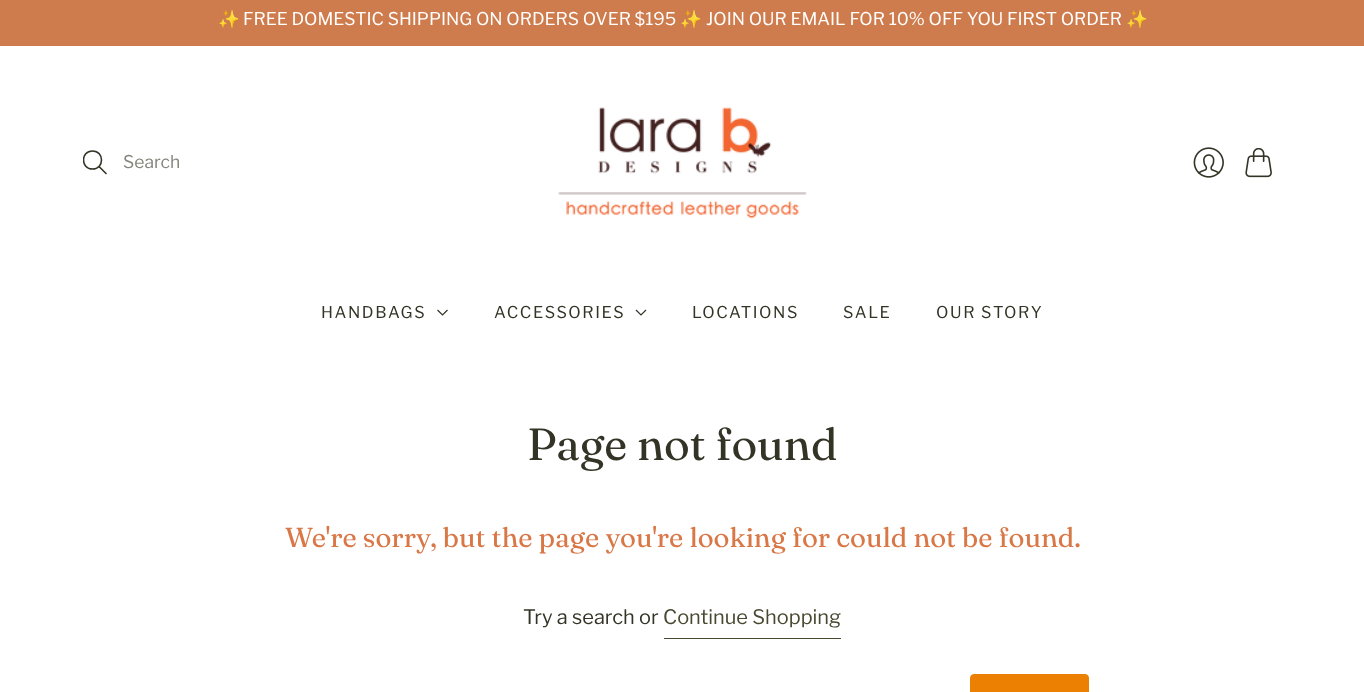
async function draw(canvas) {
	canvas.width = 1364;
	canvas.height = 692;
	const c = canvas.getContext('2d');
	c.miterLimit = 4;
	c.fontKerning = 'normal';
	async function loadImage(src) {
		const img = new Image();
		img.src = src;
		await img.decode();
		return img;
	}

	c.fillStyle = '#fff';
	c.fillRect(0, 0, 1364, 692);
	c.fillStyle = '#ce7c4d';
	c.fillRect(0, 0, 1364, 46);
	c.font = '17.5px Noto Color Emoji';
	c.fillStyle = '#fff';
	c.fillText('✨', 218, 25);
	c.font = '17.5px Libre Franklin';
	c.fillText('FREE DOMESTIC SHIPPING ON ORDERS OVER $195', 243, 25);
	c.font = '17.5px Noto Color Emoji';
	c.fillText('✨', 680, 25);
	c.font = '17.5px Libre Franklin';
	c.fillText('JOIN OUR EMAIL FOR 10% OFF YOU FIRST ORDER', 706, 25);
	c.font = '17.5px Noto Color Emoji';
	c.fillText('✨', 1126, 25);
	c.save();
	c.beginPath();
	c.rect(83, 150, 25, 25);
	c.clip();
	c.beginPath();
	c.moveTo(92.5, 169);
	c.bezierCurveTo(104.5, 169, 104.5, 151, 92.5, 151);
	c.bezierCurveTo(80.5, 151, 80.5, 169, 92.5, 169);
	c.closePath();
	c.strokeStyle = '#333326';
	c.lineWidth = 1.6;
	c.lineCap = 'round';
	c.lineJoin = 'round';
	c.stroke();
	c.restore();
	c.beginPath();
	c.moveTo(106, 173.5);
	c.lineTo(99.5, 167);
	c.strokeStyle = '#333326';
	c.lineWidth = 1.6;
	c.lineCap = 'round';
	c.lineJoin = 'round';
	c.stroke();
	c.font = '17.5px Libre Franklin';
	c.fillStyle = '#85857d';
	c.fillText('Search', 123, 168);
	c.drawImage(await loadImage('img1.png'), 1193, 147, 31, 31);
	c.drawImage(await loadImage('img2.png'), 1245, 148, 27, 30);
	c.drawImage(await loadImage('img3.png'), 558, 107, 249, 112);
	c.letterSpacing = '1.6px';
	c.font = '16.25px Libre Franklin';
	c.fillStyle = '#333326';
	c.fillText('HANDBAGS', 321, 318);
	c.beginPath();
	c.moveTo(437.5, 310);
	c.lineTo(442.5, 315);
	c.lineTo(447.5, 310);
	c.lineWidth = 1.2;
	c.lineCap = 'butt';
	c.lineJoin = 'miter';
	c.stroke();
	c.fillText('ACCESSORIES', 494, 318);
	c.beginPath();
	c.moveTo(636, 310);
	c.lineTo(641, 315);
	c.lineTo(646, 310);
	c.stroke();
	for (const [text, x, y] of [
		['LOCATIONS', 692, 318],
		['SALE', 843, 318],
		['OUR STORY', 936, 318],
	]) {
		c.fillText(text, x, y);
	}
	c.letterSpacing = '0px';
	c.font = '45px Fraunces';
	c.fillText('Page not found', 527, 460);
	c.font = '27.5px "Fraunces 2"';
	c.fillStyle = '#d97746';
	c.fillText('We\'re sorry, but the page you\'re looking for could not be found.', 285, 547);
	c.font = '20px Libre Franklin';
	c.fillStyle = '#333326';
	c.fillText('Try a search or', 523, 624);
	c.fillStyle = '#494932';
	c.fillText('Continue Shopping', 663, 624);
	c.fillRect(664, 638, 177, 1);
	c.fillStyle = '#eb8002';
	c.beginPath();
	c.roundRect(970.5, 674.5, 118, 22, 3.5);
	c.fill();
	c.strokeStyle = '#eb8002';
	c.lineWidth = 1;
	c.stroke();
}

draw(document.querySelector('canvas'));
